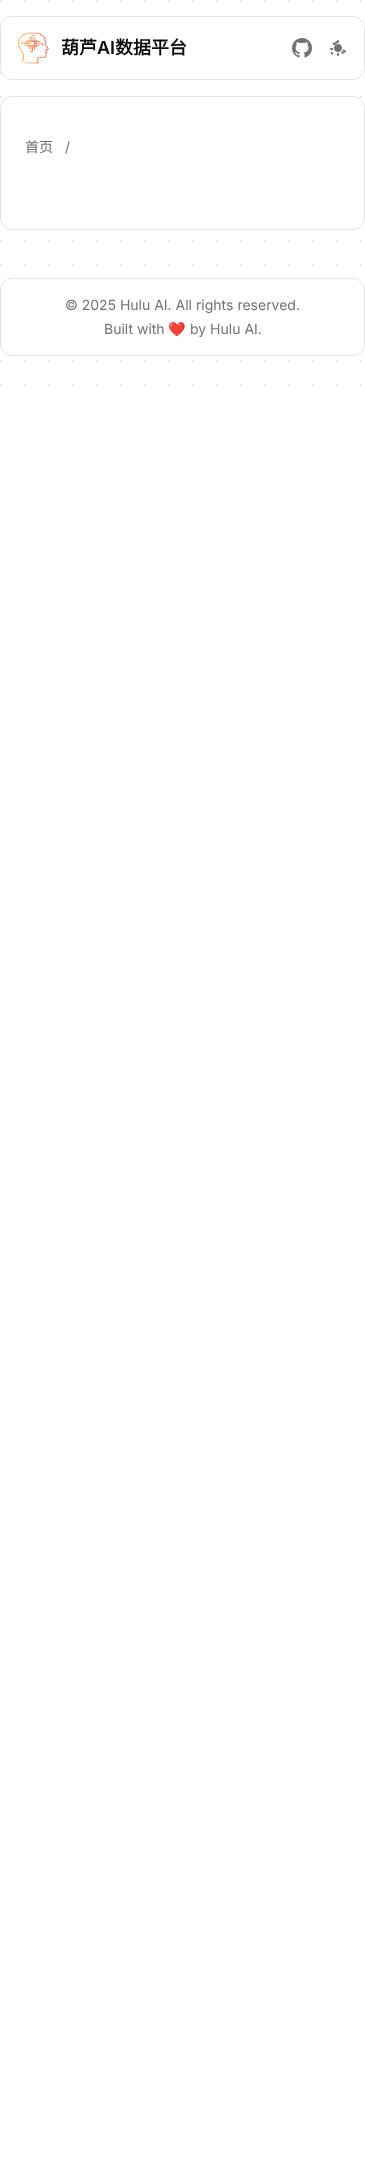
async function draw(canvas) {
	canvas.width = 365;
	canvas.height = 2161;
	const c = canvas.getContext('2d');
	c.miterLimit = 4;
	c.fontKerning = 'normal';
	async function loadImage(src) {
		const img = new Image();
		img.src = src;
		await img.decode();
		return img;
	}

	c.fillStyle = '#fff';
	c.fillRect(0, 0, 365, 2161);
	c.beginPath();
	c.moveTo(1, 1);
	c.lineTo(1, 385.2);
	c.strokeStyle = '#e4e4e7';
	c.lineWidth = 2;
	c.lineCap = 'round';
	c.setLineDash([0, 24]);
	c.stroke();
	c.beginPath();
	c.moveTo(25, 1);
	c.lineTo(25, 385.2);
	c.stroke();
	c.beginPath();
	c.moveTo(49, 1);
	c.lineTo(49, 385.2);
	c.stroke();
	c.beginPath();
	c.moveTo(73, 1);
	c.lineTo(73, 385.2);
	c.stroke();
	c.beginPath();
	c.moveTo(97, 1);
	c.lineTo(97, 385.2);
	c.stroke();
	c.beginPath();
	c.moveTo(121, 1);
	c.lineTo(121, 385.2);
	c.stroke();
	c.beginPath();
	c.moveTo(145, 1);
	c.lineTo(145, 385.2);
	c.stroke();
	c.beginPath();
	c.moveTo(169, 1);
	c.lineTo(169, 385.2);
	c.stroke();
	c.beginPath();
	c.moveTo(193, 1);
	c.lineTo(193, 385.2);
	c.stroke();
	c.beginPath();
	c.moveTo(217, 1);
	c.lineTo(217, 385.2);
	c.stroke();
	c.beginPath();
	c.moveTo(241, 1);
	c.lineTo(241, 385.2);
	c.stroke();
	c.beginPath();
	c.moveTo(265, 1);
	c.lineTo(265, 385.2);
	c.stroke();
	c.beginPath();
	c.moveTo(289, 1);
	c.lineTo(289, 385.2);
	c.stroke();
	c.beginPath();
	c.moveTo(313, 1);
	c.lineTo(313, 385.2);
	c.stroke();
	c.beginPath();
	c.moveTo(337, 1);
	c.lineTo(337, 385.2);
	c.stroke();
	c.beginPath();
	c.moveTo(361, 1);
	c.lineTo(361, 385.2);
	c.stroke();
	c.fillStyle = '#ffffffcc';
	c.beginPath();
	c.roundRect(0.5, 16.5, 364, 63, 11.5);
	c.fill();
	c.lineWidth = 1;
	c.setLineDash([]);
	c.stroke();
	c.drawImage(await loadImage('img1.png'), 17, 32, 32, 32);
	c.font = 'bold 18px Noto Sans CJK SC';
	c.fillStyle = '#09090b';
	c.fillText('葫芦', 61, 54);
	c.font = '600 18px Inter';
	c.fillText('AI', 97, 54);
	c.font = 'bold 18px Noto Sans CJK SC';
	c.fillText('数据平台', 115, 54);
	c.drawImage(await loadImage('img2.png'), 292, 38, 20, 20);
	c.drawImage(await loadImage('img3.png'), 330, 40, 16, 16);
	c.fillStyle = '#fff';
	c.beginPath();
	c.roundRect(0.5, 96.5, 364, 133, 11.5);
	c.fill();
	c.stroke();
	c.font = '14px Noto Sans CJK SC';
	c.fillStyle = '#71717a';
	c.fillText('首页', 25, 152);
	c.font = '14px Inter';
	c.fillText('/', 65, 152);
	c.fillStyle = '#fff';
	c.beginPath();
	c.roundRect(0.5, 278.5, 364, 77, 11.5);
	c.fill();
	c.stroke();
	c.fillStyle = '#71717a';
	c.fillText('© 2025 Hulu AI. All rights reserved.', 65, 310);
	c.fillText('Built with', 104, 334);
	c.font = '14px Noto Color Emoji';
	c.fillText('❤️', 168, 334);
	c.font = '14px Inter';
	c.fillText('by Hulu AI.', 190, 334);
}

draw(document.querySelector('canvas'));
